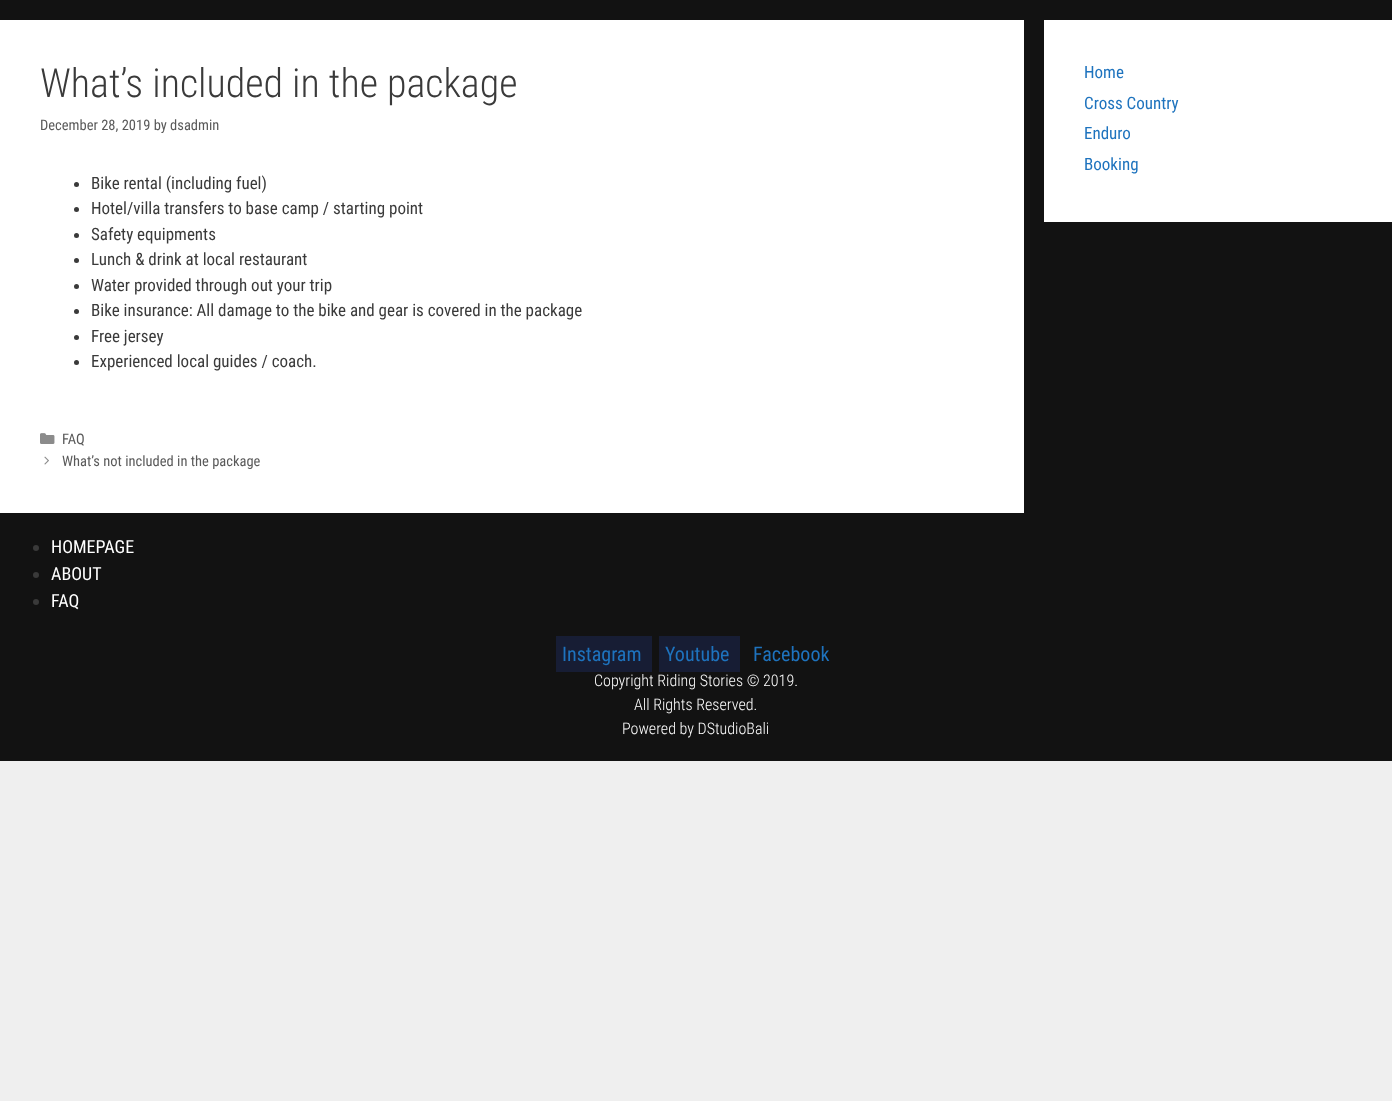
async function draw(canvas) {
	canvas.width = 1392;
	canvas.height = 1101;
	const c = canvas.getContext('2d');
	c.miterLimit = 4;
	c.fontKerning = 'normal';
	async function loadImage(src) {
		const img = new Image();
		img.src = src;
		await img.decode();
		return img;
	}

	c.fillStyle = '#efefef';
	c.fillRect(0, 0, 1392, 1101);
	c.fillStyle = '#121212';
	c.fillRect(0, 0, 1392, 761);
	c.fillStyle = '#fff';
	c.fillRect(0, 20, 1024, 493);
	c.font = '300 40px Roboto Condensed';
	c.fillStyle = '#3a3a3a';
	c.fillText('What’s included in the package', 40, 97);
	c.font = '14.5px Roboto Condensed';
	c.fillStyle = '#595959';
	c.fillText('December 28, 2019 by dsadmin', 40, 130);
	c.fillStyle = '#3a3a3a';
	c.beginPath();
	c.arc(76.5, 184.5, 2.5, 0, 2 * Math.PI);
	c.fill();
	c.font = '17px Roboto Condensed';
	c.fillText('Bike rental (including fuel)', 91, 189);
	c.beginPath();
	c.arc(76.5, 209.5, 2.5, 0, 2 * Math.PI);
	c.fill();
	c.fillText('Hotel/villa transfers to base camp / starting point', 91, 214);
	c.beginPath();
	c.arc(76.5, 235.5, 2.5, 0, 2 * Math.PI);
	c.fill();
	c.fillText('Safety equipments', 91, 240);
	c.beginPath();
	c.arc(76.5, 260.5, 2.5, 0, 2 * Math.PI);
	c.fill();
	c.fillText('Lunch & drink at local restaurant', 91, 265);
	c.beginPath();
	c.arc(76.5, 286.5, 2.5, 0, 2 * Math.PI);
	c.fill();
	c.fillText('Water provided through out your trip', 91, 291);
	c.beginPath();
	c.arc(76.5, 311.5, 2.5, 0, 2 * Math.PI);
	c.fill();
	c.fillText('Bike insurance: All damage to the bike and gear is covered in the package', 91, 316);
	c.beginPath();
	c.arc(76.5, 337.5, 2.5, 0, 2 * Math.PI);
	c.fill();
	c.fillText('Free jersey', 91, 342);
	c.beginPath();
	c.arc(76.5, 362.5, 2.5, 0, 2 * Math.PI);
	c.fill();
	c.fillText('Experienced local guides / coach.', 91, 367);
	c.drawImage(await loadImage('img1.png'), 40, 433, 15, 11);
	c.font = '14.5px Roboto Condensed';
	c.fillStyle = '#595959';
	c.fillText('FAQ', 62, 444);
	c.drawImage(await loadImage('img2.png'), 44, 456, 5, 9);
	c.fillText('What’s not included in the package', 62, 466);
	c.fillStyle = '#fff';
	c.fillRect(1044, 20, 348, 202);
	c.font = '17px Roboto Condensed';
	c.fillStyle = '#1e73be';
	for (const [text, x, y] of [
		['Home', 1084, 78],
		['Cross Country', 1084, 109],
		['Enduro', 1084, 139],
		['Booking', 1084, 170],
	]) {
		c.fillText(text, x, y);
	}
	c.fillStyle = '#3a3a3a';
	c.beginPath();
	c.arc(36, 548, 3, 0, 2 * Math.PI);
	c.fill();
	c.font = '18px Roboto Condensed';
	c.fillStyle = '#fff';
	c.fillText('HOMEPAGE', 51, 553);
	c.fillStyle = '#3a3a3a';
	c.beginPath();
	c.arc(36, 575, 3, 0, 2 * Math.PI);
	c.fill();
	c.fillStyle = '#fff';
	c.fillText('ABOUT', 51, 580);
	c.fillStyle = '#3a3a3a';
	c.beginPath();
	c.arc(36, 602, 3, 0, 2 * Math.PI);
	c.fill();
	c.fillStyle = '#fff';
	c.fillText('FAQ', 51, 607);
	c.fillStyle = '#171d34';
	c.fillRect(556, 636, 96, 36);
	c.font = '20px Roboto Condensed';
	c.fillStyle = '#1e73be';
	c.fillText('Instagram', 562, 661);
	c.fillStyle = '#171d34';
	c.fillRect(659, 636, 81, 36);
	c.fillStyle = '#1e73be';
	c.fillText('Youtube', 665, 661);
	c.fillText('Facebook', 753, 661);
	c.font = '300 16px Roboto Condensed';
	c.fillStyle = '#fff';
	for (const [text, x, y] of [
		['Copyright Riding Stories © 2019.', 594, 686],
		['All Rights Reserved.', 634, 710],
		['Powered by DStudioBali', 622, 734],
	]) {
		c.fillText(text, x, y);
	}
}

draw(document.querySelector('canvas'));
